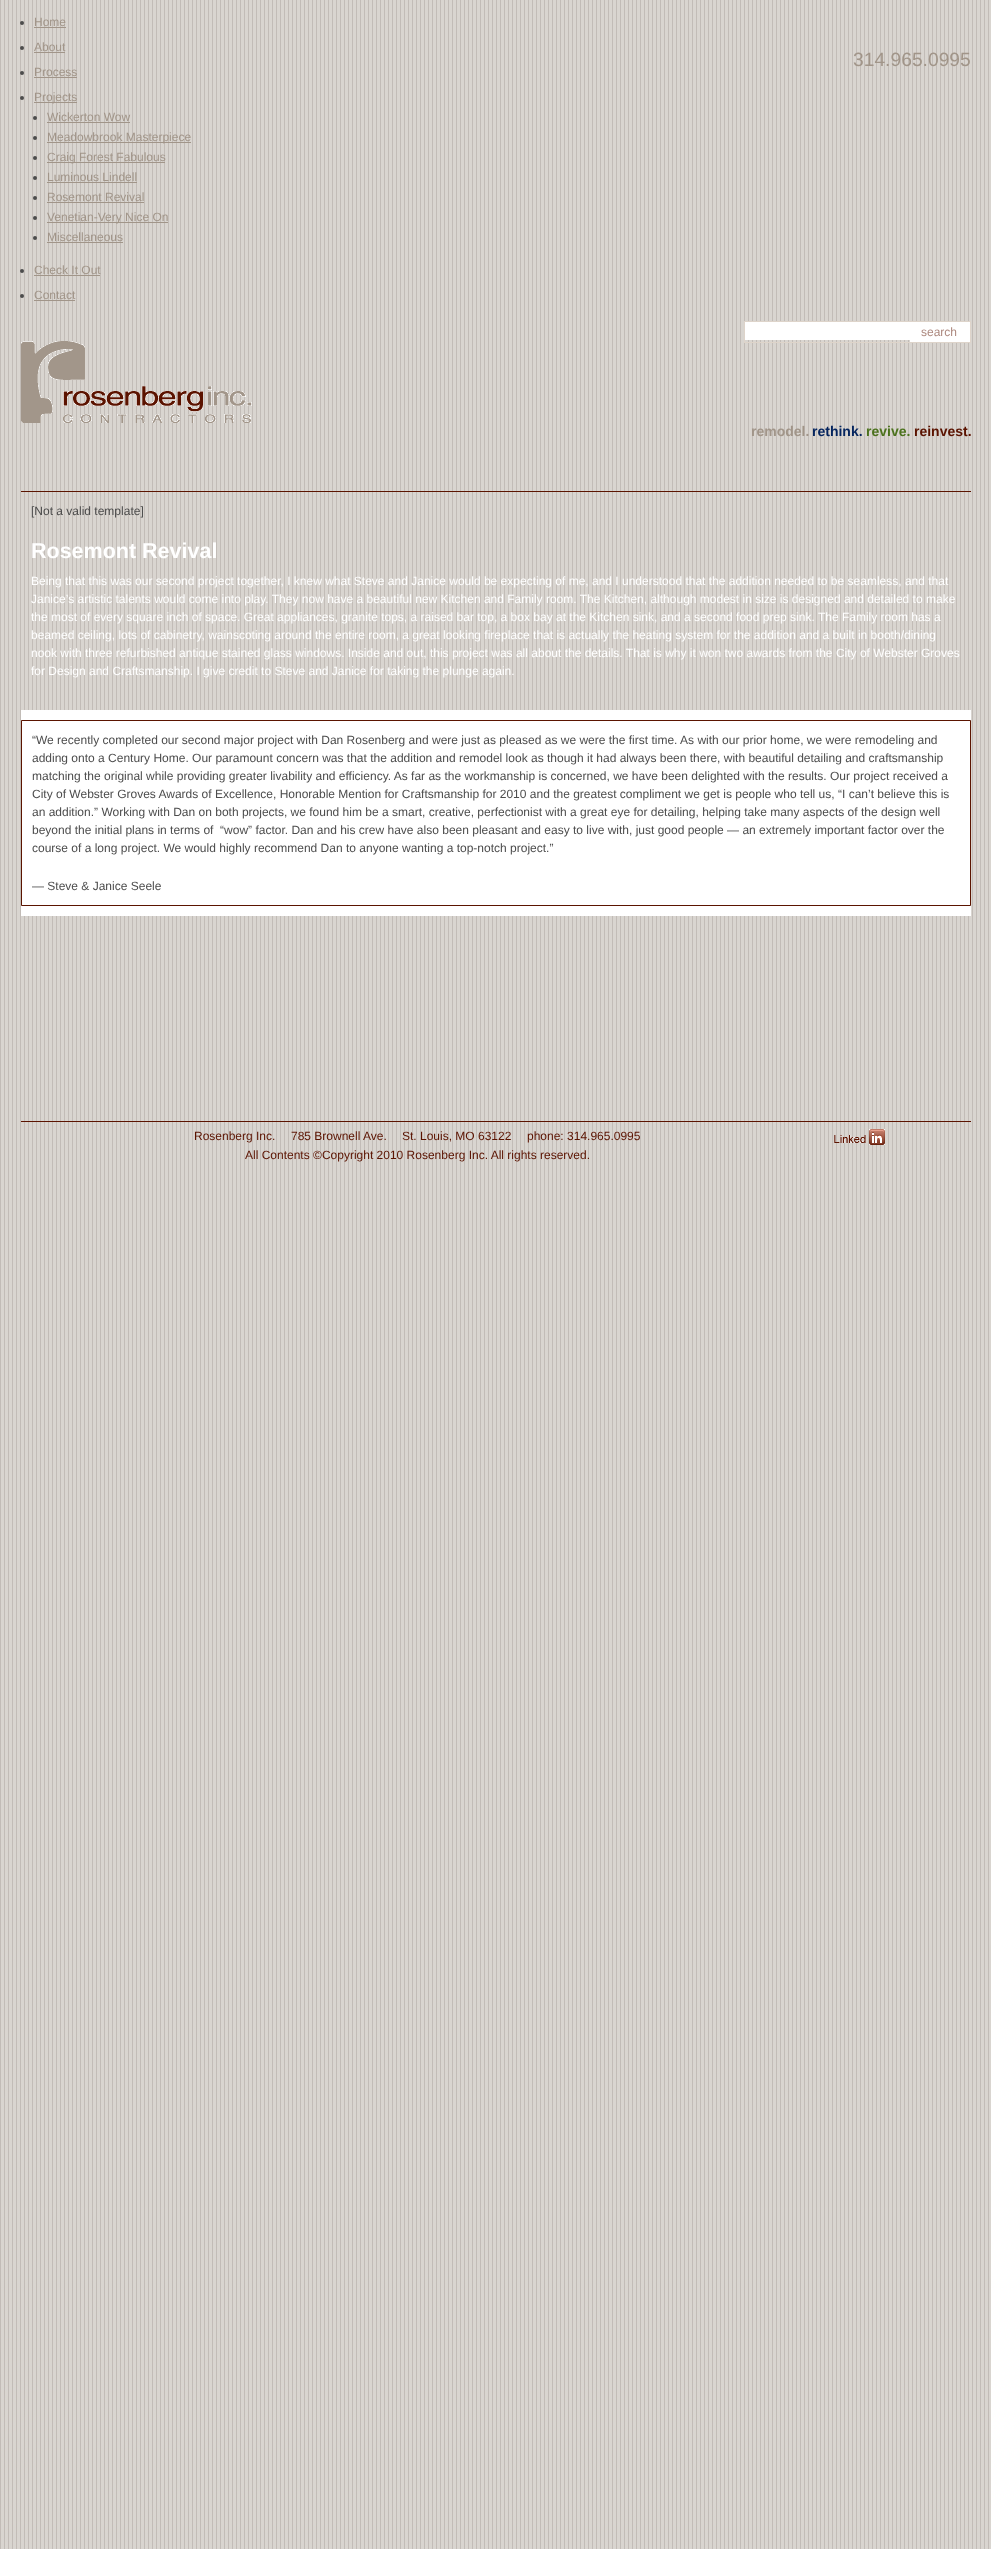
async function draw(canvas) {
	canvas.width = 991;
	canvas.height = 2549;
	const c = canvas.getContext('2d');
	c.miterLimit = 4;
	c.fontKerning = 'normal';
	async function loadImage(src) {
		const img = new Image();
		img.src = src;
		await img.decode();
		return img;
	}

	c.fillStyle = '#d9d5d0';
	c.fillRect(0, 0, 991, 2549);
	c.drawImage(await loadImage('img1.png'), 0, 0, 989, 2549);
	c.fillStyle = '#4c4c4c';
	c.beginPath();
	c.arc(22, 23, 2, 0, 2 * Math.PI);
	c.fill();
	c.font = '12px Liberation Sans';
	c.fillStyle = '#a19589';
	c.fillText('Home', 34, 26);
	c.fillRect(34, 27, 32, 1);
	c.fillStyle = '#4c4c4c';
	c.beginPath();
	c.arc(22, 48, 2, 0, 2 * Math.PI);
	c.fill();
	c.fillStyle = '#a19589';
	c.fillText('About', 34, 51);
	c.fillRect(34, 52, 31, 1);
	c.fillStyle = '#4c4c4c';
	c.beginPath();
	c.arc(22, 73, 2, 0, 2 * Math.PI);
	c.fill();
	c.fillStyle = '#a19589';
	c.fillText('Process', 34, 76);
	c.fillRect(34, 77, 43, 1);
	c.fillStyle = '#4c4c4c';
	c.beginPath();
	c.arc(22, 98, 2, 0, 2 * Math.PI);
	c.fill();
	c.fillStyle = '#a19589';
	c.fillRect(34, 102, 43, 1);
	c.fillText('Projects', 34, 101);
	c.fillStyle = '#4c4c4c';
	c.beginPath();
	c.arc(35, 118, 2, 0, 2 * Math.PI);
	c.fill();
	c.fillStyle = '#a19589';
	c.fillText('Wickerton Wow', 47, 121);
	c.fillRect(47, 122, 83, 1);
	c.fillStyle = '#4c4c4c';
	c.beginPath();
	c.arc(35, 138, 2, 0, 2 * Math.PI);
	c.fill();
	c.fillStyle = '#a19589';
	c.fillRect(47, 142, 144, 1);
	c.fillText('Meadowbrook Masterpiece', 47, 141);
	c.fillStyle = '#4c4c4c';
	c.beginPath();
	c.arc(35, 158, 2, 0, 2 * Math.PI);
	c.fill();
	c.fillStyle = '#a19589';
	c.fillRect(47, 162, 118, 1);
	c.fillText('Craig Forest Fabulous', 47, 161);
	c.fillStyle = '#4c4c4c';
	c.beginPath();
	c.arc(35, 178, 2, 0, 2 * Math.PI);
	c.fill();
	c.fillStyle = '#a19589';
	c.fillText('Luminous Lindell', 47, 181);
	c.fillRect(47, 182, 90, 1);
	c.fillStyle = '#4c4c4c';
	c.beginPath();
	c.arc(35, 198, 2, 0, 2 * Math.PI);
	c.fill();
	c.fillStyle = '#a19589';
	c.fillText('Rosemont Revival', 47, 201);
	c.fillRect(47, 202, 97, 1);
	c.fillStyle = '#4c4c4c';
	c.beginPath();
	c.arc(35, 218, 2, 0, 2 * Math.PI);
	c.fill();
	c.fillStyle = '#a19589';
	c.fillRect(47, 222, 121, 1);
	c.fillText('Venetian-Very Nice On', 47, 221);
	c.fillStyle = '#4c4c4c';
	c.beginPath();
	c.arc(35, 238, 2, 0, 2 * Math.PI);
	c.fill();
	c.fillStyle = '#a19589';
	c.fillText('Miscellaneous', 47, 241);
	c.fillRect(47, 242, 76, 1);
	c.fillStyle = '#4c4c4c';
	c.beginPath();
	c.arc(22, 271, 2, 0, 2 * Math.PI);
	c.fill();
	c.fillStyle = '#a19589';
	c.fillText('Check It Out', 34, 274);
	c.fillRect(34, 275, 66, 1);
	c.fillStyle = '#4c4c4c';
	c.beginPath();
	c.arc(22, 296, 2, 0, 2 * Math.PI);
	c.fill();
	c.fillStyle = '#a19589';
	c.fillText('Contact', 34, 299);
	c.fillRect(34, 300, 41, 1);
	c.font = '19.25px Liberation Sans';
	c.fillText('314.965.0995', 853, 66);
	c.strokeStyle = '#ded4ca';
	c.strokeRect(744.5, 321.5, 226, 21);
	c.fillStyle = '#fff';
	c.fillRect(745, 322, 165, 18);
	c.fillRect(910, 322, 60, 20);
	c.font = '12px Liberation Sans';
	c.fillStyle = '#ad897f';
	c.fillText('search', 921, 336);
	c.drawImage(await loadImage('img2.png'), 21, 341, 231, 82);
	c.font = 'bold 14px Liberation Sans';
	c.fillStyle = '#a19589';
	c.fillText('remodel.', 751, 436);
	c.fillStyle = '#04245e';
	c.fillText('rethink.', 812, 436);
	c.fillStyle = '#4c721d';
	c.fillText('revive.', 866, 436);
	c.fillStyle = '#5b1300';
	c.fillText('reinvest.', 914, 436);
	c.fillStyle = '#5b1400';
	c.fillRect(21, 491, 950, 1);
	c.font = '12px Liberation Sans';
	c.fillStyle = '#4c4c4c';
	c.fillText('[Not a valid template]', 31, 515);
	c.font = 'bold 21.5px Liberation Sans';
	c.fillStyle = '#fff';
	c.fillText('Rosemont Revival', 31, 558);
	c.font = '12px Liberation Sans';
	for (const [text, x, y] of [
		['Being that this was our second project together, I knew what Steve and Janice would be expecting of me, and I understood that the addition needed to be seamless, and that', 31, 585],
		['Janice’s artistic talents would come into play. They now have a beautiful new Kitchen and Family room. The Kitchen, although modest in size is designed and detailed to make', 31, 603],
		['the most of every square inch of space. Great appliances, granite tops, a raised bar top, a box bay at the Kitchen sink, and a second food prep sink. The Family room has a', 31, 621],
		['beamed ceiling, lots of cabinetry, wainscoting around the entire room, a great looking fireplace that is actually the heating system for the addition and a built in booth/dining', 31, 639],
		['nook with three refurbished antique stained glass windows. Inside and out, this project was all about the details. That is why it won two awards from the City of Webster Groves', 31, 657],
		['for Design and Craftsmanship. I give credit to Steve and Janice for taking the plunge again.', 31, 675],
	]) {
		c.fillText(text, x, y);
	}
	c.fillRect(21, 710, 950, 10);
	c.fillRect(21, 906, 950, 10);
	c.beginPath();
	c.rect(21.5, 720.5, 949, 185);
	c.fill();
	c.strokeStyle = '#5b1400';
	c.stroke();
	c.fillStyle = '#4c4c4c';
	for (const [text, x, y] of [
		['“We recently completed our second major project with Dan Rosenberg and were just as pleased as we were the first time. As with our prior home, we were remodeling and', 32, 744],
		['adding onto a Century Home. Our paramount concern was that the addition and remodel look as though it had always been there, with beautiful detailing and craftsmanship', 32, 762],
		['matching the original while providing greater livability and efficiency. As far as the workmanship is concerned, we have been delighted with the results. Our project received a', 32, 780],
		['City of Webster Groves Awards of Excellence, Honorable Mention for Craftsmanship for 2010 and the greatest compliment we get is people who tell us, “I can’t believe this is', 32, 798],
		['an addition.” Working with Dan on both projects, we found him be a smart, creative, perfectionist with a great eye for detailing, helping take many aspects of the design well', 32, 816],
		['beyond the initial plans in terms of  “wow” factor. Dan and his crew have also been pleasant and easy to live with, just good people — an extremely important factor over the', 32, 834],
		['course of a long project. We would highly recommend Dan to anyone wanting a top-notch project.”', 32, 852],
		['— Steve & Janice Seele', 32, 890],
	]) {
		c.fillText(text, x, y);
	}
	c.fillStyle = '#5b1300';
	c.fillRect(21, 1121, 950, 1);
	for (const [text, x, y] of [
		['Rosenberg Inc.', 194, 1140],
		['785 Brownell Ave.', 291, 1140],
		['St. Louis, MO 63122', 402, 1140],
		['phone: 314.965.0995', 527, 1140],
		['All Contents ©Copyright 2010 Rosenberg Inc. All rights reserved.', 245, 1159],
	]) {
		c.fillText(text, x, y);
	}
	c.drawImage(await loadImage('img3.png'), 834, 1129, 51, 16);
}

draw(document.querySelector('canvas'));
